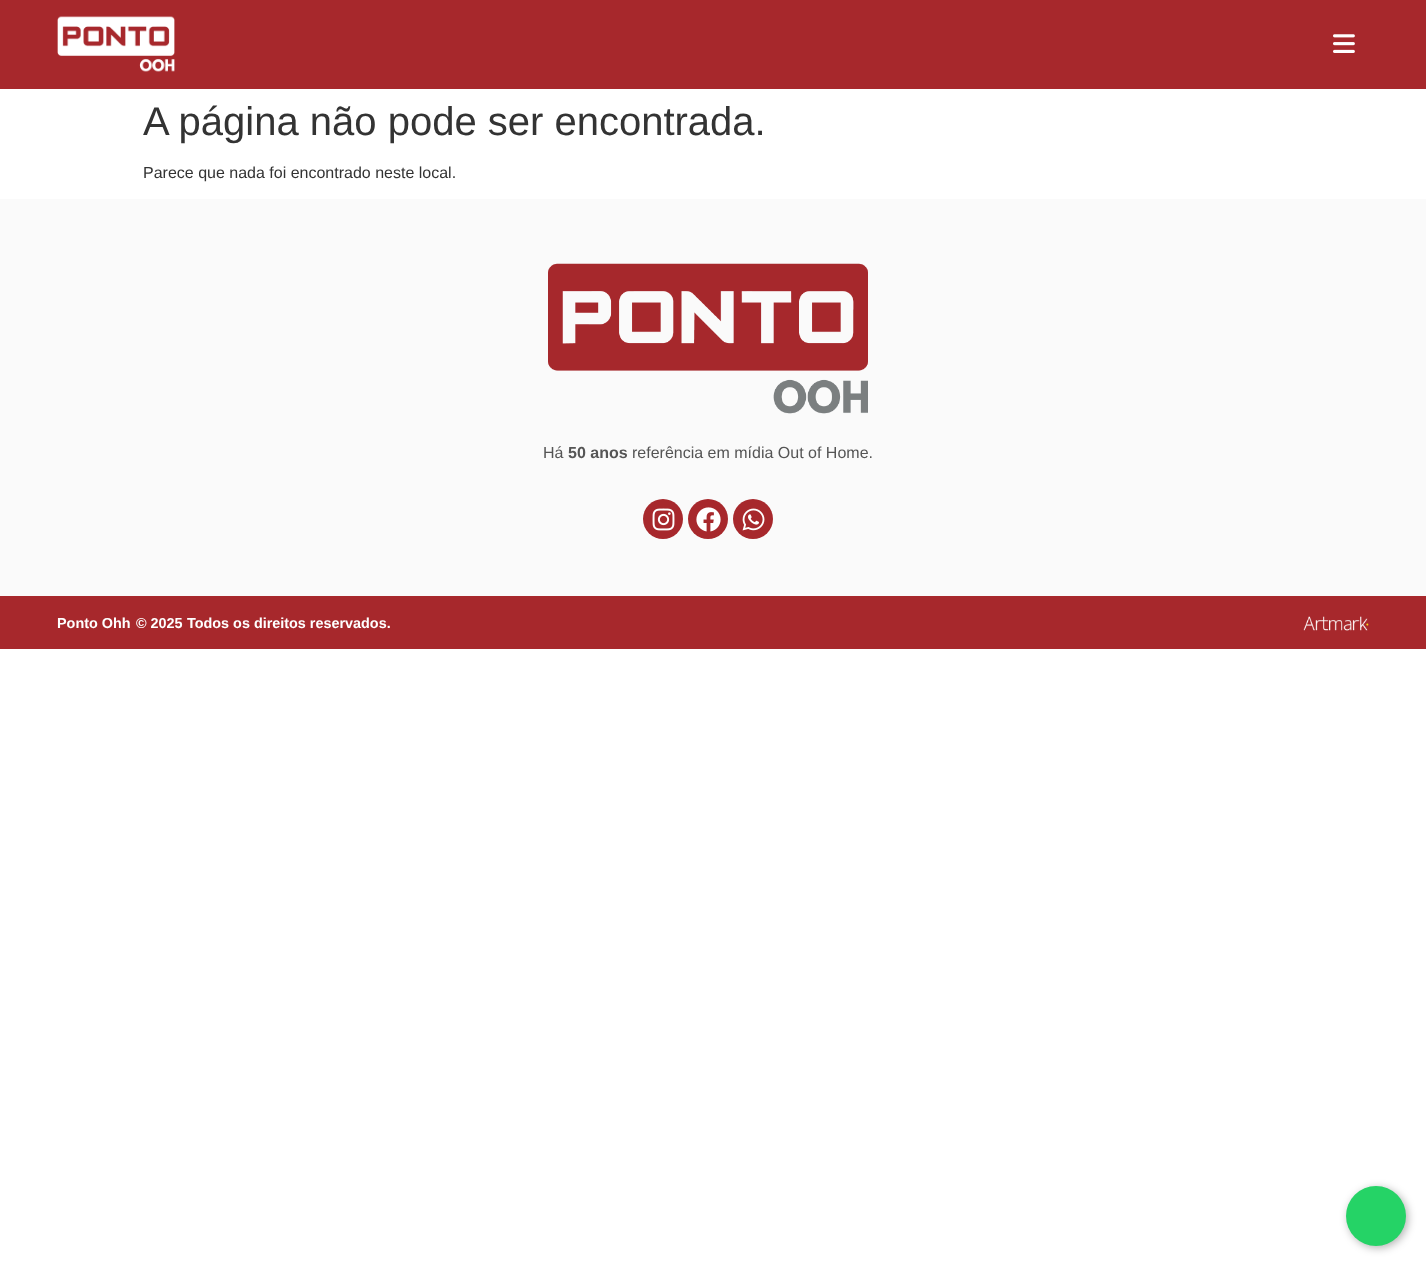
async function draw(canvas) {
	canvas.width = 1426;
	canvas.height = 1266;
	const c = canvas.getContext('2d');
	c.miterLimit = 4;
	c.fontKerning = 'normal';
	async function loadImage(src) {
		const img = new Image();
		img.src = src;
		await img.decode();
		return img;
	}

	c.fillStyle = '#fff';
	c.fillRect(0, 0, 1426, 1266);
	c.fillStyle = '#a7282c';
	c.fillRect(0, 0, 1426, 89);
	c.drawImage(await loadImage('img1.png'), 57, 16, 118, 56);
	c.drawImage(await loadImage('img2.png'), 1333, 34, 22, 19);
	c.font = '40px Liberation Sans';
	c.fillStyle = '#333';
	c.fillText('A página não pode ser encontrada.', 143, 135);
	c.font = '16px Liberation Sans';
	c.fillText('Parece que nada foi encontrado neste local.', 143, 178);
	c.fillStyle = '#fafafa';
	c.fillRect(0, 199, 1426, 397);
	c.drawImage(await loadImage('img3.png'), 548, 263, 320, 151);
	c.fillStyle = '#555';
	c.fillText('Há', 543, 458);
	c.font = 'bold 16px Liberation Sans';
	c.fillText('50 anos', 568, 458);
	c.font = '16px Liberation Sans';
	c.fillText('referência em mídia Out of Home.', 632, 458);
	c.fillStyle = '#a7282c';
	c.beginPath();
	c.arc(663, 519, 20, 0, 2 * Math.PI);
	c.fill();
	c.drawImage(await loadImage('img4.png'), 652, 508, 23, 23);
	c.beginPath();
	c.arc(708, 519, 20, 0, 2 * Math.PI);
	c.fill();
	c.drawImage(await loadImage('img5.png'), 696, 507, 25, 25);
	c.beginPath();
	c.arc(753, 519, 20, 0, 2 * Math.PI);
	c.fill();
	c.drawImage(await loadImage('img6.png'), 742, 508, 23, 23);
	c.fillRect(0, 596, 1426, 53);
	c.font = 'bold 14.4px Liberation Sans';
	c.fillStyle = '#fff';
	for (const [text, x, y] of [
		['Ponto Ohh', 57, 628],
		['© 2025', 136, 628],
		['Todos os direitos reservados.', 187, 628],
	]) {
		c.fillText(text, x, y);
	}
	c.drawImage(await loadImage('img7.png'), 1303, 616, 66, 15);
	c.fillStyle = '#0000004d';
	c.filter = 'blur(4px)';
	c.beginPath();
	c.roundRect(1348, 1188, 60, 60, 30);
	c.fill();
	c.filter = 'none';
	c.fillStyle = '#25d366';
	c.beginPath();
	c.arc(1376, 1216, 30, 0, 2 * Math.PI);
	c.fill();
}

draw(document.querySelector('canvas'));
